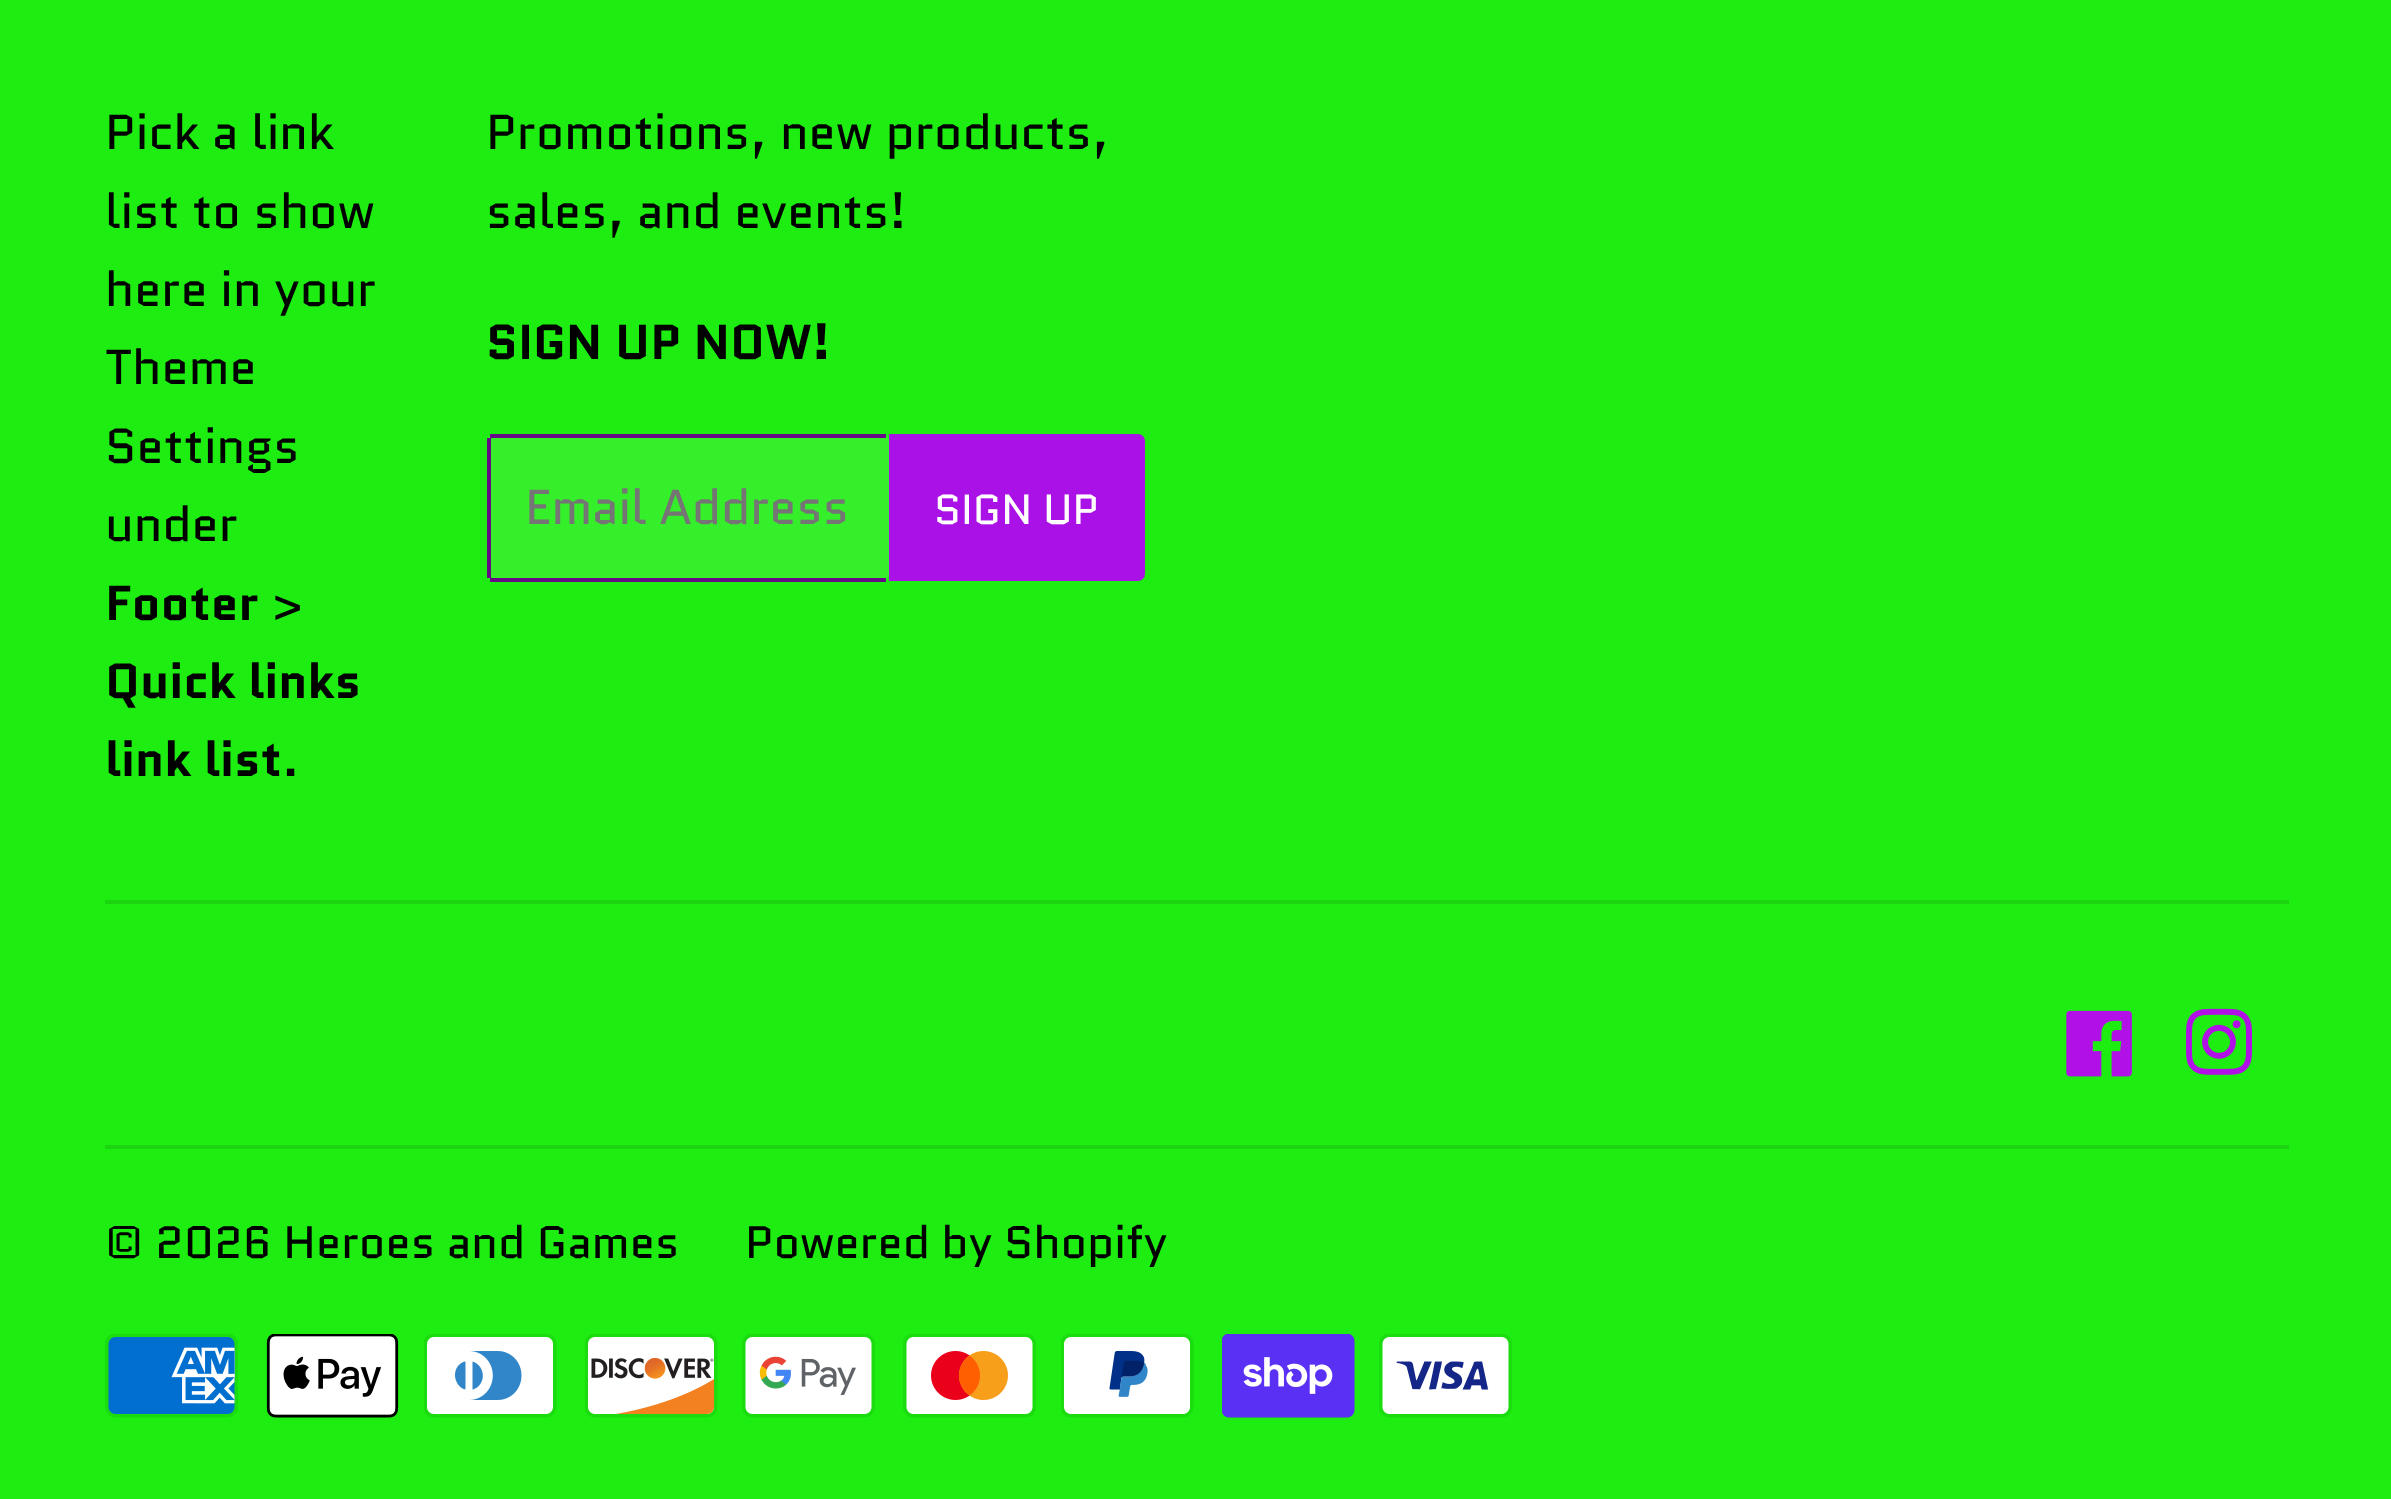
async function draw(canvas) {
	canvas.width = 2391;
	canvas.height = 1499;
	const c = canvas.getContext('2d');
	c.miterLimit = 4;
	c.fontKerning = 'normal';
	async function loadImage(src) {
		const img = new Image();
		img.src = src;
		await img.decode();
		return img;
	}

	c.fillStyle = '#1ded11';
	c.fillRect(0, 0, 2391, 1499);
	c.font = '49px Quantico';
	c.fillStyle = '#000';
	for (const [text, x, y] of [
		['Pick a link', 105, 149],
		['list to show', 105, 228],
		['here in your', 105, 306],
		['Theme', 105, 384],
		['Settings', 105, 463],
		['under', 105, 541],
	]) {
		c.fillText(text, x, y);
	}
	c.font = 'bold 49px Quantico';
	c.fillText('Footer', 105, 620);
	c.font = '49px Quantico';
	c.fillText('>', 271, 620);
	c.font = 'bold 49px Quantico';
	c.fillText('Quick links', 105, 698);
	c.fillText('link list', 105, 776);
	c.font = '49px Quantico';
	for (const [text, x, y] of [
		['.', 282, 776],
		['Promotions, new products,', 486, 149],
		['sales, and events!', 486, 228],
	]) {
		c.fillText(text, x, y);
	}
	c.font = 'bold 49px Quantico';
	c.fillText('SIGN UP NOW!', 486, 359);
	c.fillStyle = '#34ef29';
	c.beginPath();
	c.roundRect(487, 434, 402, 147, 7);
	c.fill();
	for (const [x, y, w, h, color] of [
		[490, 434, 396, 4, '#680a87'],
		[490, 578, 396, 4, '#680a87'],
		[487, 438, 4, 140, '#680a87'],
	]) {
		c.fillStyle = color;
		c.fillRect(x, y, w, h);
	}
	c.font = '49px Quantico';
	c.fillStyle = '#757575';
	c.fillText('Email Address', 525, 524);
	c.fillStyle = '#a911e6';
	c.beginPath();
	c.roundRect(889, 434, 256, 147, [0, 7, 7, 0]);
	c.fill();
	c.font = '42px Quantico';
	c.fillStyle = '#fff';
	c.fillText('SIGN UP', 934, 524);
	c.fillStyle = '#1ad50f';
	c.fillRect(105, 900, 2184, 4);
	c.drawImage(await loadImage('img1.png'), 2066, 1010, 66, 67);
	c.drawImage(await loadImage('img2.png'), 2186, 1008, 66, 67);
	c.fillRect(105, 1145, 2184, 4);
	c.font = '45.5px Quantico';
	c.fillStyle = '#000';
	c.fillText('© 2026 Heroes and Games', 105, 1258);
	c.fillText('Powered by Shopify', 745, 1258);
	c.drawImage(await loadImage('img3.png'), 105, 1334, 133, 84);
	c.drawImage(await loadImage('img4.png'), 266, 1334, 133, 84);
	c.drawImage(await loadImage('img5.png'), 424, 1334, 133, 84);
	c.drawImage(await loadImage('img6.png'), 585, 1334, 133, 84);
	c.drawImage(await loadImage('img7.png'), 742, 1334, 133, 84);
	c.drawImage(await loadImage('img8.png'), 903, 1334, 133, 84);
	c.drawImage(await loadImage('img9.png'), 1061, 1334, 133, 84);
	c.drawImage(await loadImage('img10.png'), 1222, 1334, 133, 84);
	c.drawImage(await loadImage('img11.png'), 1379, 1334, 133, 84);
}

draw(document.querySelector('canvas'));
